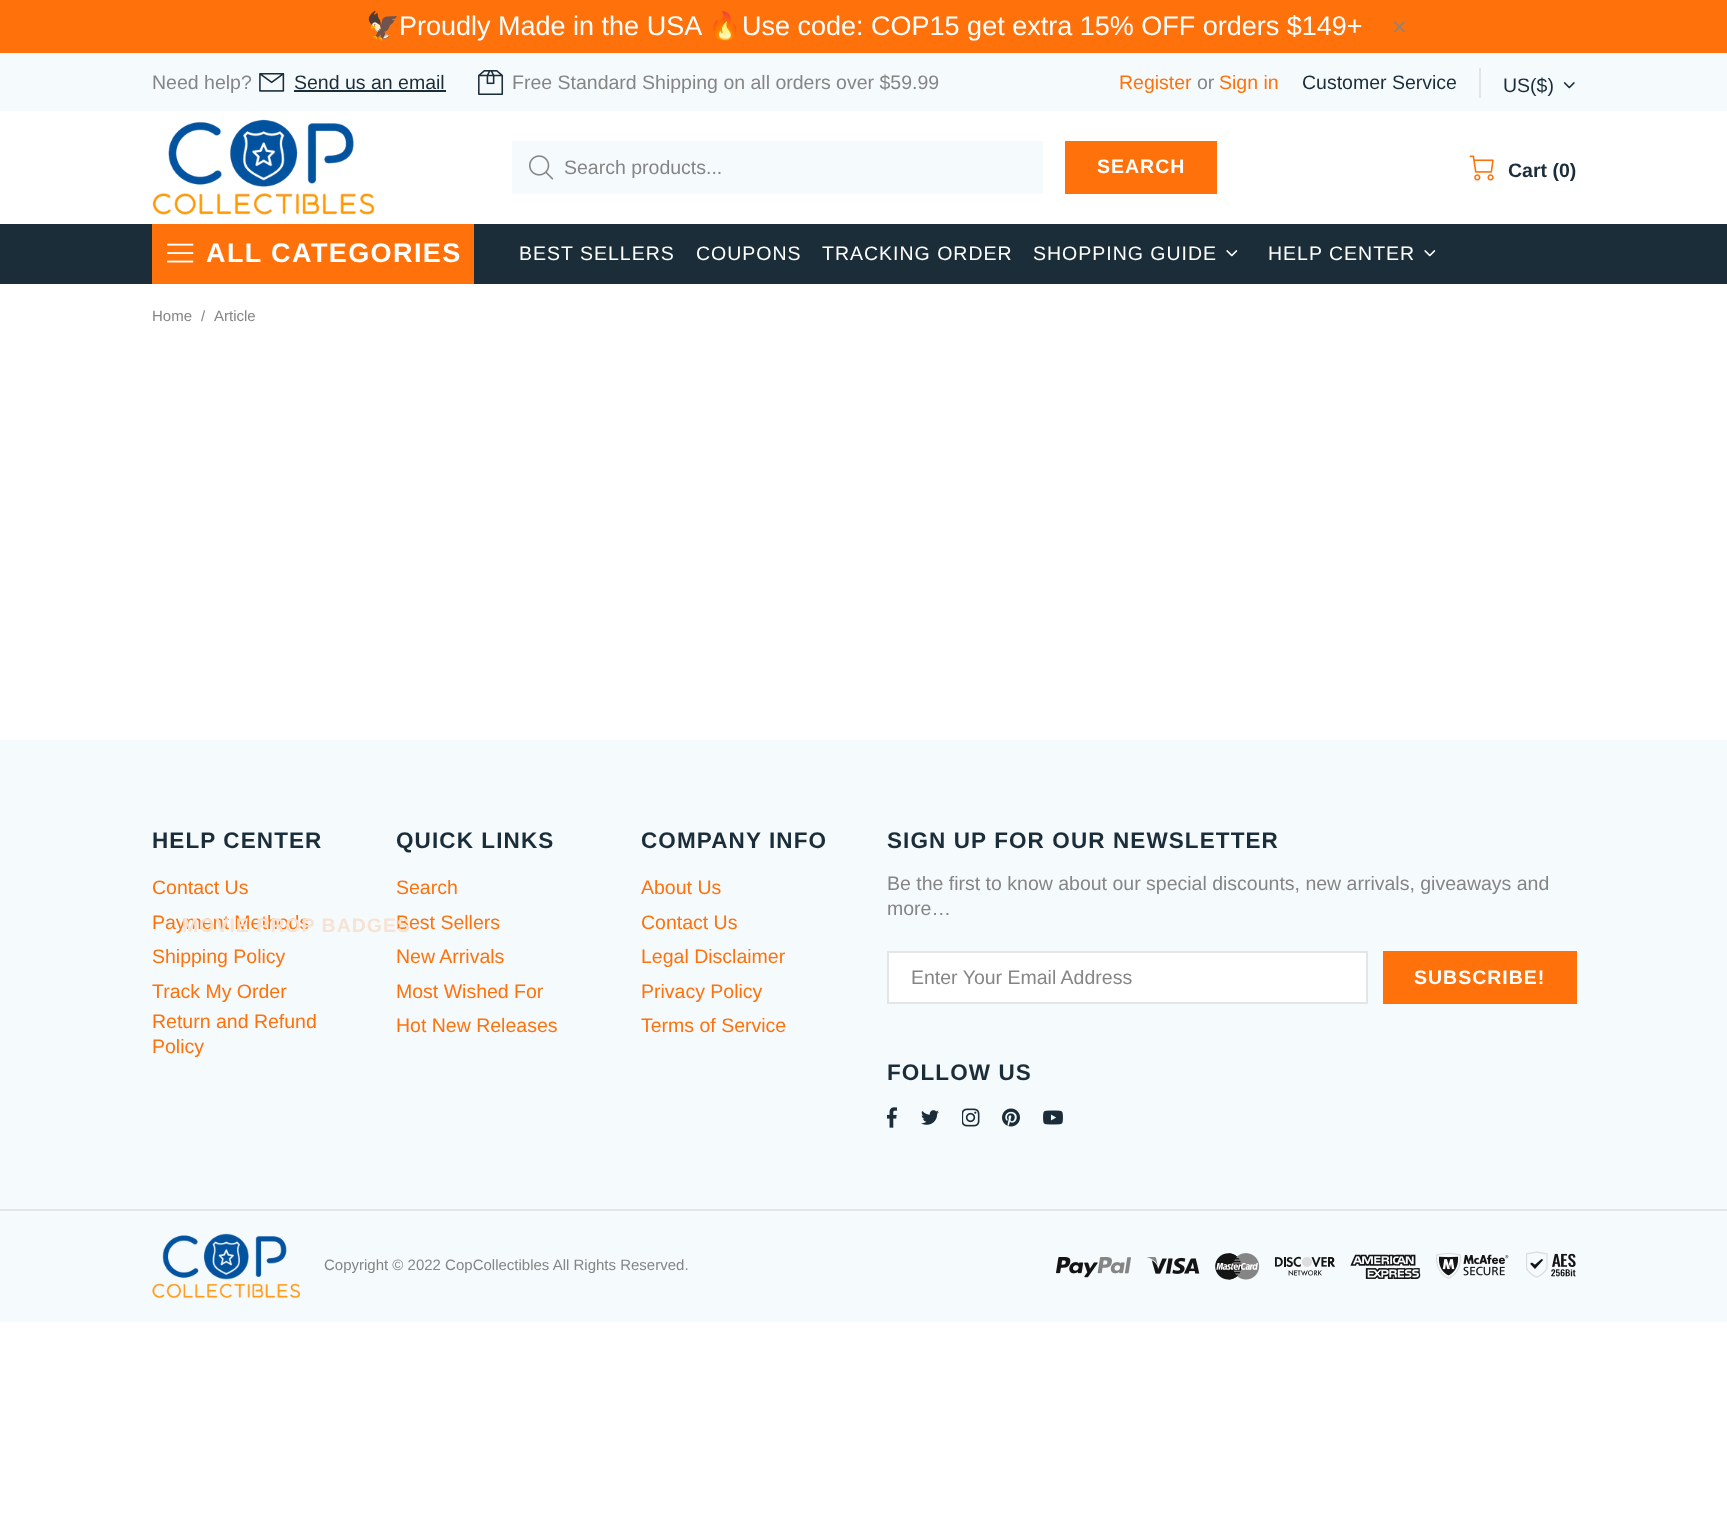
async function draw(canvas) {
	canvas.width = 1727;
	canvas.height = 1521;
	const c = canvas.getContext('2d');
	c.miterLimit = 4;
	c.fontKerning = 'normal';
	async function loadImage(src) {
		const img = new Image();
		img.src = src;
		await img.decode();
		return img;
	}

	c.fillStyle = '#fff';
	c.fillRect(0, 0, 1727, 1521);
	c.fillStyle = '#ff710a';
	c.fillRect(0, 0, 1727, 53);
	c.font = '27px Noto Color Emoji';
	c.fillStyle = '#fff';
	c.fillText('🦅', 366, 35);
	c.font = '27px Liberation Sans';
	c.fillText('Proudly Made in the USA', 399, 35);
	c.font = '27px Noto Color Emoji';
	c.fillText('🔥', 708, 35);
	c.font = '27px Liberation Sans';
	c.fillText('Use code: COP15 get extra 15% OFF orders $149+', 742, 35);
	c.drawImage(await loadImage('img1.png'), 1394, 21, 11, 12);
	c.fillStyle = '#f5fafd';
	c.fillRect(0, 53, 1727, 58);
	c.font = '19.5px Liberation Sans';
	c.fillStyle = '#858585';
	c.fillText('Need help?', 152, 89);
	c.drawImage(await loadImage('img2.png'), 259, 73, 26, 19);
	c.fillStyle = '#1b2d39';
	c.fillText('Send us an email', 294, 89);
	c.fillRect(294, 90, 152, 2);
	c.drawImage(await loadImage('img3.png'), 478, 70, 26, 25);
	c.fillStyle = '#858585';
	c.fillText('Free Standard Shipping on all orders over $59.99', 512, 89);
	c.fillStyle = '#ff710a';
	c.fillText('Register', 1119, 89);
	c.fillStyle = '#858585';
	c.fillText('or', 1197, 89);
	c.fillStyle = '#ff710a';
	c.fillText('Sign in', 1219, 89);
	c.fillStyle = '#1b2d39';
	c.fillText('Customer Service', 1302, 89);
	c.fillStyle = '#e5e5e5';
	c.fillRect(1479, 68, 2, 30);
	c.fillStyle = '#1b2d39';
	c.fillText('US($)', 1503, 92);
	c.drawImage(await loadImage('img4.png'), 1563, 82, 12, 7);
	c.drawImage(await loadImage('img5.png'), 152, 119, 223, 96);
	c.fillStyle = '#f5fafd';
	c.fillRect(512, 141, 531, 53);
	c.drawImage(await loadImage('img6.png'), 529, 155, 25, 25);
	c.fillStyle = '#858585';
	c.fillText('Search products...', 564, 174);
	c.fillStyle = '#ff710a';
	c.fillRect(1065, 141, 152, 53);
	c.letterSpacing = '1px';
	c.font = 'bold 19.5px Liberation Sans';
	c.fillStyle = '#fff';
	c.fillText('SEARCH', 1097, 173);
	c.drawImage(await loadImage('img7.png'), 1469, 155, 25, 26);
	c.letterSpacing = '0px';
	c.fillStyle = '#1b2d39';
	c.fillText('Cart (0)', 1508, 177);
	c.fillRect(0, 224, 1727, 60);
	c.fillStyle = '#ff710a';
	c.fillRect(152, 224, 322, 60);
	c.drawImage(await loadImage('img8.png'), 167, 243, 27, 20);
	c.letterSpacing = '1.4px';
	c.font = 'bold 27px Liberation Sans';
	c.fillStyle = '#fff';
	c.fillText('ALL CATEGORIES', 206, 262);
	c.fillStyle = '#f5fafd';
	c.fillRect(0, 740, 1727, 582);
	c.letterSpacing = '0px';
	c.font = '19.5px Liberation Sans';
	c.fillStyle = '#ff710a';
	c.fillText('Payment Methods', 152, 929);
	c.fillText('Best Sellers', 396, 929);
	c.letterSpacing = '1px';
	c.font = 'bold 19.5px Liberation Sans';
	c.fillStyle = '#f7e3d3';
	c.fillText('MOVIE PROP BADGES', 182, 932);
	c.font = '19.5px Liberation Sans';
	c.fillStyle = '#fff';
	for (const [text, x, y] of [
		['BEST SELLERS', 519, 260],
		['COUPONS', 696, 260],
		['TRACKING ORDER', 822, 260],
		['SHOPPING GUIDE', 1033, 260],
	]) {
		c.fillText(text, x, y);
	}
	c.drawImage(await loadImage('img9.png'), 1226, 250, 12, 7);
	c.fillText('HELP CENTER', 1268, 260);
	c.drawImage(await loadImage('img9.png'), 1424, 250, 12, 7);
	c.letterSpacing = '0px';
	c.font = '15px Liberation Sans';
	c.fillStyle = '#858585';
	for (const [text, x, y] of [
		['Home', 152, 321],
		['/', 201, 321],
		['Article', 214, 321],
	]) {
		c.fillText(text, x, y);
	}
	c.letterSpacing = '1.1px';
	c.font = 'bold 22.5px Liberation Sans';
	c.fillStyle = '#1b2d39';
	c.fillText('HELP CENTER', 152, 848);
	c.letterSpacing = '0px';
	c.font = '19.5px Liberation Sans';
	c.fillStyle = '#ff710a';
	for (const [text, x, y] of [
		['Contact Us', 152, 894],
		['Shipping Policy', 152, 963],
		['Track My Order', 152, 998],
		['Return and Refund', 152, 1028],
		['Policy', 152, 1053],
	]) {
		c.fillText(text, x, y);
	}
	c.letterSpacing = '1.1px';
	c.font = 'bold 22.5px Liberation Sans';
	c.fillStyle = '#1b2d39';
	c.fillText('QUICK LINKS', 396, 848);
	c.letterSpacing = '0px';
	c.font = '19.5px Liberation Sans';
	c.fillStyle = '#ff710a';
	for (const [text, x, y] of [
		['Search', 396, 894],
		['New Arrivals', 396, 963],
		['Most Wished For', 396, 998],
		['Hot New Releases', 396, 1032],
	]) {
		c.fillText(text, x, y);
	}
	c.letterSpacing = '1.1px';
	c.font = 'bold 22.5px Liberation Sans';
	c.fillStyle = '#1b2d39';
	c.fillText('COMPANY INFO', 641, 848);
	c.letterSpacing = '0px';
	c.font = '19.5px Liberation Sans';
	c.fillStyle = '#ff710a';
	for (const [text, x, y] of [
		['About Us', 641, 894],
		['Contact Us', 641, 929],
		['Legal Disclaimer', 641, 963],
		['Privacy Policy', 641, 998],
		['Terms of Service', 641, 1032],
	]) {
		c.fillText(text, x, y);
	}
	c.letterSpacing = '1.1px';
	c.font = 'bold 22.5px Liberation Sans';
	c.fillStyle = '#1b2d39';
	c.fillText('SIGN UP FOR OUR NEWSLETTER', 887, 848);
	c.letterSpacing = '0px';
	c.font = '19.5px Liberation Sans';
	c.fillStyle = '#858585';
	c.fillText('Be the first to know about our special discounts, new arrivals, giveaways and', 887, 890);
	c.fillText('more…', 887, 915);
	c.fillStyle = '#fff';
	c.beginPath();
	c.rect(888, 952, 479, 51);
	c.fill();
	c.strokeStyle = '#e5e5e5';
	c.lineWidth = 2;
	c.stroke();
	c.fillStyle = '#858585';
	c.fillText('Enter Your Email Address', 911, 984);
	c.fillStyle = '#ff710a';
	c.fillRect(1383, 951, 194, 53);
	c.letterSpacing = '1px';
	c.font = 'bold 19.5px Liberation Sans';
	c.fillStyle = '#fff';
	c.fillText('SUBSCRIBE!', 1414, 984);
	c.letterSpacing = '1.1px';
	c.font = 'bold 22.5px Liberation Sans';
	c.fillStyle = '#1b2d39';
	c.fillText('FOLLOW US', 887, 1080);
	c.drawImage(await loadImage('img10.png'), 887, 1107, 10, 21);
	c.drawImage(await loadImage('img11.png'), 921, 1110, 18, 15);
	c.drawImage(await loadImage('img12.png'), 962, 1108, 18, 19);
	c.drawImage(await loadImage('img13.png'), 1002, 1108, 18, 19);
	c.drawImage(await loadImage('img14.png'), 1043, 1110, 20, 15);
	c.fillStyle = '#e5e5e5';
	c.fillRect(0, 1209, 1727, 2);
	c.drawImage(await loadImage('img15.png'), 152, 1233, 148, 66);
	c.letterSpacing = '0px';
	c.font = '15px Liberation Sans';
	c.fillStyle = '#858585';
	c.fillText('Copyright © 2022 CopCollectibles All Rights Reserved.', 324, 1270);
	c.drawImage(await loadImage('img16.png'), 1056, 1257, 75, 21);
	c.drawImage(await loadImage('img17.png'), 1146, 1257, 54, 17);
	c.drawImage(await loadImage('img18.png'), 1215, 1253, 45, 27);
	c.drawImage(await loadImage('img19.png'), 1275, 1256, 60, 20);
	c.drawImage(await loadImage('img20.png'), 1350, 1254, 71, 25);
	c.drawImage(await loadImage('img21.png'), 1436, 1252, 73, 27);
	c.drawImage(await loadImage('img22.png'), 1526, 1251, 50, 27);
}

draw(document.querySelector('canvas'));
